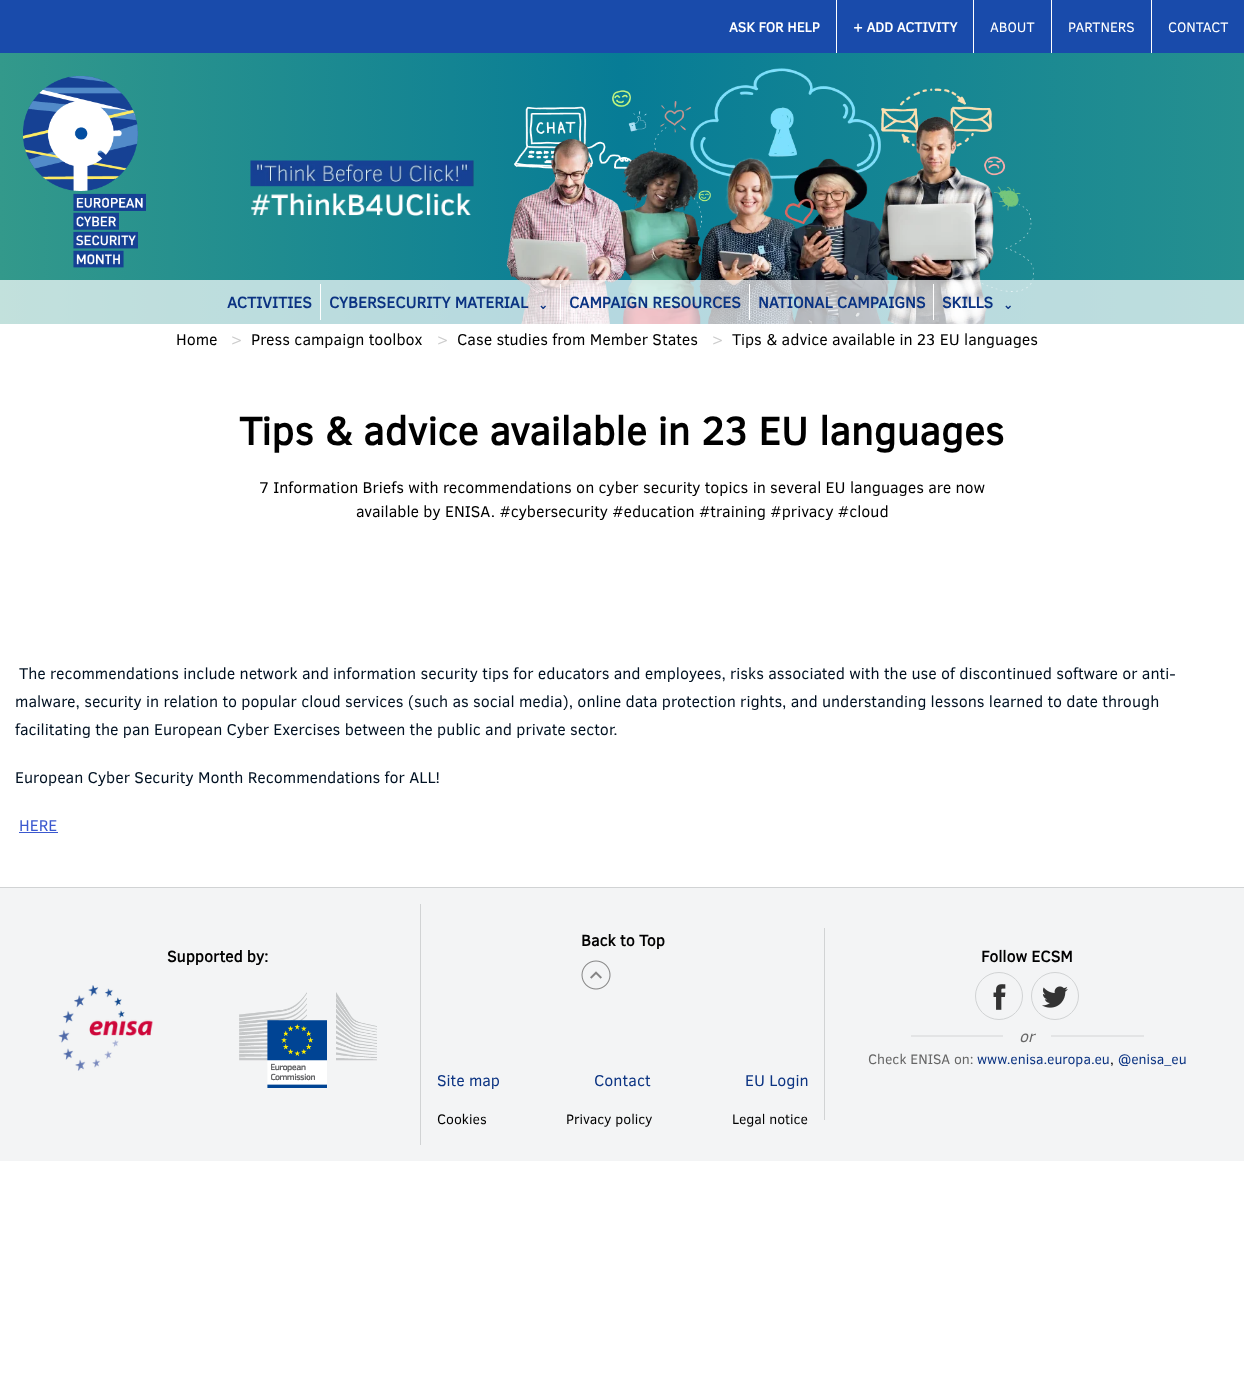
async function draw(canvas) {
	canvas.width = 1244;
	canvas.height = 1390;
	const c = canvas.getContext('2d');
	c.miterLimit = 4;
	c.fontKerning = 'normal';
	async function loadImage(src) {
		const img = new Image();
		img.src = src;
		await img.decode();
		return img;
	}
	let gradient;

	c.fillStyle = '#fff';
	c.fillRect(0, 0, 1244, 1390);
	gradient = c.createLinearGradient(0, 162, 1244, 162);
	gradient.addColorStop(0, '#33998b');
	gradient.addColorStop(0.5, '#077c96');
	gradient.addColorStop(1, '#259090');
	c.fillStyle = gradient;
	c.fillRect(0, 53, 1244, 271);
	c.fillStyle = '#194bab';
	c.fillRect(0, 0, 1244, 53);
	c.fillStyle = '#fff';
	c.fillRect(836, 0, 1, 53);
	c.font = 'bold 14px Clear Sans';
	c.fillText('ASK FOR HELP', 729, 32);
	c.fillRect(973, 0, 1, 53);
	c.fillText('+ ADD ACTIVITY', 853, 32);
	c.fillRect(1051, 0, 1, 53);
	c.font = '14px Clear Sans';
	c.fillText('ABOUT', 990, 32);
	c.fillRect(1151, 0, 1, 53);
	c.fillText('PARTNERS', 1068, 32);
	c.fillText('CONTACT', 1168, 32);
	c.drawImage(await loadImage('img1.png'), 23, 76, 123, 192);
	c.drawImage(await loadImage('img2.png'), 250, 160, 224, 56);
	c.drawImage(await loadImage('img3.png'), 506, 68, 528, 256);
	c.fillStyle = '#ffffffb3';
	c.fillRect(0, 280, 1244, 44);
	c.fillStyle = '#fff';
	c.fillRect(320, 284, 1, 36);
	c.font = 'bold 16px Clear Sans';
	c.fillStyle = '#0b3382';
	c.fillText('ACTIVITIES', 227, 308);
	c.fillStyle = '#fff';
	c.fillRect(560, 284, 1, 36);
	c.fillStyle = '#0b3382';
	c.fillText('CYBERSECURITY MATERIAL', 329, 308);
	c.font = 'bold 12px DejaVu Sans';
	c.fillText('⌄', 538, 309);
	c.fillStyle = '#fff';
	c.fillRect(749, 284, 1, 36);
	c.font = 'bold 16px Clear Sans';
	c.fillStyle = '#0b3382';
	c.fillText('CAMPAIGN RESOURCES', 569, 308);
	c.fillStyle = '#fff';
	c.fillRect(933, 284, 1, 36);
	c.fillStyle = '#0b3382';
	c.fillText('NATIONAL CAMPAIGNS', 758, 308);
	c.fillText('SKILLS', 942, 308);
	c.font = 'bold 12px DejaVu Sans';
	c.fillText('⌄', 1003, 309);
	c.font = '16px Clear Sans';
	c.fillStyle = '#000';
	c.fillText('Home', 176, 345);
	c.fillStyle = '#ccc';
	c.fillText('>', 231, 345);
	c.fillStyle = '#000';
	c.fillText('Press campaign toolbox', 251, 345);
	c.fillStyle = '#ccc';
	c.fillText('>', 437, 345);
	c.fillStyle = '#000';
	c.fillText('Case studies from Member States', 457, 345);
	c.fillStyle = '#ccc';
	c.fillText('>', 712, 345);
	c.fillStyle = '#000';
	c.fillText('Tips & advice available in 23 EU languages', 732, 345);
	c.font = 'bold 40px Clear Sans';
	c.fillText('Tips & advice available in 23 EU languages', 239, 445);
	c.font = '16px Clear Sans';
	c.fillText('7 Information Briefs with recommendations on cyber security topics in several EU languages are now', 259, 493);
	c.fillText('available by ENISA. #cybersecurity #education #training #privacy #cloud', 356, 517);
	c.fillStyle = '#012';
	for (const [text, x, y] of [
		['The recommendations include network and information security tips for educators and employees, risks associated with the use of discontinued software or anti-', 19, 679],
		['malware, security in relation to popular cloud services (such as social media), online data protection rights, and understanding lessons learned to date through', 15, 707],
		['facilitating the pan European Cyber Exercises between the public and private sector.', 15, 735],
		['European Cyber Security Month Recommendations for ALL!', 15, 783],
	]) {
		c.fillText(text, x, y);
	}
	c.fillStyle = '#3b58cf';
	c.fillText('HERE', 19, 831);
	for (const [x, y, w, h, color] of [
		[19, 832, 39, 1, '#3b58cf'],
		[0, 888, 1244, 273, '#f3f4f5'],
		[0, 887, 1244, 1, '#d1d3d4'],
	]) {
		c.fillStyle = color;
		c.fillRect(x, y, w, h);
	}
	c.font = 'bold 16px Clear Sans';
	c.fillStyle = '#000';
	c.fillText('Supported by:', 167, 962);
	c.drawImage(await loadImage('img4.png'), 58, 985, 95, 86);
	c.drawImage(await loadImage('img5.png'), 239, 992, 138, 96);
	c.fillStyle = '#d1d3d4';
	c.fillRect(420, 904, 1, 241);
	c.fillStyle = '#000';
	c.fillText('Back to Top', 581, 946);
	c.drawImage(await loadImage('img6.png'), 581, 960, 30, 30);
	c.font = '16px Clear Sans';
	c.fillStyle = '#0b3382';
	for (const [text, x, y] of [
		['Site map', 437, 1086],
		['Contact', 594, 1086],
		['EU Login', 745, 1086],
	]) {
		c.fillText(text, x, y);
	}
	c.font = '14px Clear Sans';
	c.fillStyle = '#000';
	for (const [text, x, y] of [
		['Cookies', 437, 1124],
		['Privacy policy', 566, 1124],
		['Legal notice', 732, 1124],
	]) {
		c.fillText(text, x, y);
	}
	c.fillStyle = '#d1d3d4';
	c.fillRect(824, 928, 1, 192);
	c.font = 'bold 16px Clear Sans';
	c.fillStyle = '#000';
	c.fillText('Follow ECSM', 981, 962);
	c.beginPath();
	c.arc(999, 996, 23.5, 0, 2 * Math.PI);
	c.strokeStyle = '#d1d3d4';
	c.stroke();
	c.drawImage(await loadImage('img7.png'), 993, 984, 13, 26);
	c.beginPath();
	c.arc(1055, 996, 23.5, 0, 2 * Math.PI);
	c.stroke();
	c.drawImage(await loadImage('img8.png'), 1042, 986, 26, 22);
	c.fillStyle = '#e3e4e5';
	c.fillRect(911, 1035, 92, 2);
	c.font = 'italic 16px Clear Sans';
	c.fillStyle = '#666';
	c.fillText('or', 1019, 1042);
	c.fillStyle = '#e3e4e5';
	c.fillRect(1051, 1035, 93, 2);
	c.font = '14px Clear Sans';
	c.fillStyle = '#666';
	c.fillText('Check ENISA on:', 868, 1064);
	c.fillStyle = '#0b3382';
	c.fillText('www.enisa.europa.eu', 977, 1064);
	c.fillStyle = '#000';
	c.fillText(',', 1110, 1064);
	c.fillStyle = '#0b3382';
	c.fillText('@enisa_eu', 1118, 1064);
}

draw(document.querySelector('canvas'));
